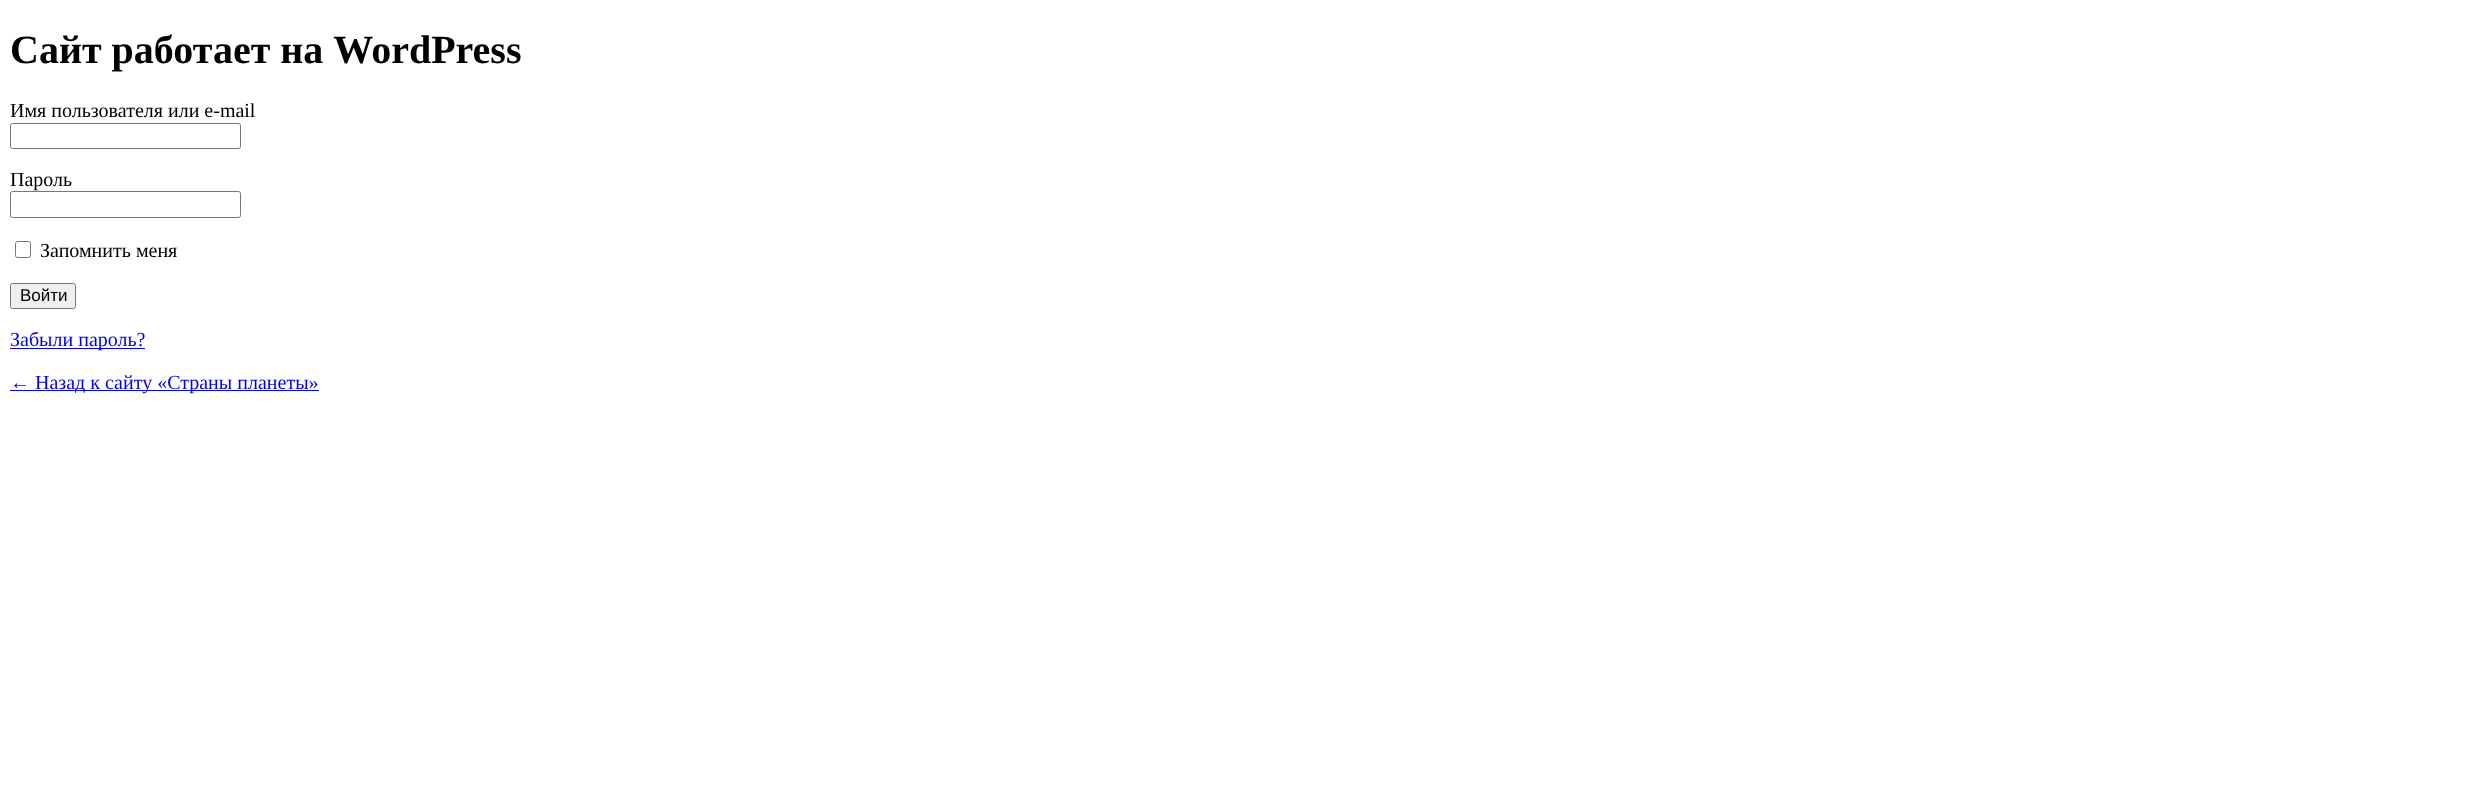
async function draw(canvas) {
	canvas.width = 2469;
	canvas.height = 797;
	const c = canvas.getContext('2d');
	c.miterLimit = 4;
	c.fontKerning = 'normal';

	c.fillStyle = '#fff';
	c.fillRect(0, 0, 2469, 797);
	c.font = 'bold 40px Liberation Serif';
	c.fillStyle = '#000';
	c.fillText('Сайт работает на WordPress', 10, 63);
	c.font = '20px Liberation Serif';
	c.fillText('Имя пользователя или e-mail', 10, 117);
	c.beginPath();
	c.roundRect(10.5, 123.5, 230, 25, 2);
	c.strokeStyle = '#767676';
	c.stroke();
	c.fillText('Пароль', 10, 186);
	c.beginPath();
	c.roundRect(10.5, 191.5, 230, 26, 2);
	c.stroke();
	c.beginPath();
	c.roundRect(15.5, 241.5, 15, 16, 2);
	c.stroke();
	c.fillText('Запомнить меня', 40, 257);
	c.fillStyle = '#efefef';
	c.beginPath();
	c.roundRect(10.5, 283.5, 65, 25, 2);
	c.fill();
	c.stroke();
	c.font = '17px Liberation Sans';
	c.fillStyle = '#000';
	c.fillText('Войти', 20, 301);
	c.fillStyle = '#00e';
	c.fillRect(10, 348, 135, 1);
	c.font = '20px Liberation Serif';
	c.fillText('Забыли пароль?', 10, 346);
	c.fillRect(10, 390, 309, 1);
	c.fillText('← Назад к сайту «Страны планеты»', 10, 389);
}

draw(document.querySelector('canvas'));
